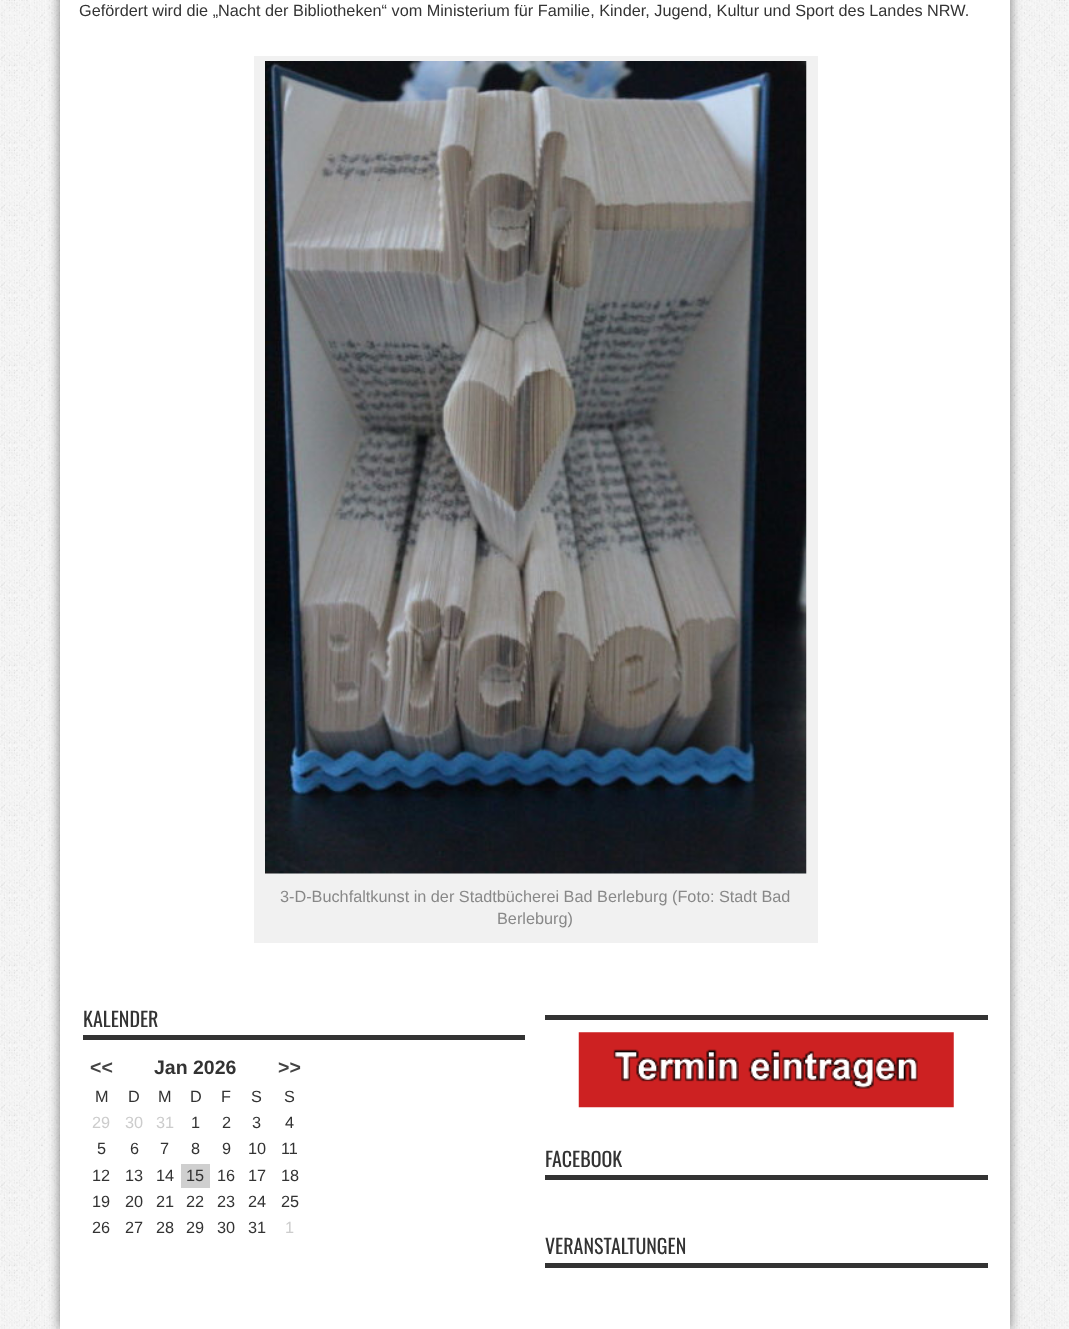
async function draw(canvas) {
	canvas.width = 1069;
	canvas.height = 1329;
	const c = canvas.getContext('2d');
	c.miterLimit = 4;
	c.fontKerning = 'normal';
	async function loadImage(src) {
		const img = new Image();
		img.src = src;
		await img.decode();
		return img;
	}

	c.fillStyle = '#fff';
	c.fillRect(0, 0, 1069, 1329);
	c.drawImage(await loadImage('img1.png'), 0, 0, 1069, 1329);
	c.fillStyle = '#00000080';
	c.filter = 'blur(6px)';
	c.beginPath();
	c.rect(60, -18, 950, 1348);
	c.fill();
	c.filter = 'none';
	c.fillStyle = '#fff';
	c.fillRect(60, 0, 950, 1329);
	c.font = '16.25px Liberation Sans';
	c.fillStyle = '#333';
	c.fillText('Gefördert wird die „Nacht der Bibliotheken“ vom Ministerium für Familie, Kinder, Jugend, Kultur und Sport des Landes NRW.', 79, 16);
	c.fillStyle = '#f1f1f1';
	c.fillRect(254, 56, 564, 887);
	c.drawImage(await loadImage('img2.png'), 265, 61, 542, 813);
	c.fillStyle = '#888';
	c.fillText('3-D-Buchfaltkunst in der Stadtbücherei Bad Berleburg (Foto: Stadt Bad', 280, 902);
	c.fillText('Berleburg)', 497, 924);
	c.fillStyle = '#333';
	c.fillRect(83, 1035, 442, 5);
	c.font = '20px Oswald';
	c.fillText('KALENDER', 83, 1027);
	c.font = 'bold 19.5px Liberation Sans';
	c.fillStyle = '#444';
	c.fillText('<<', 90, 1074);
	c.fillStyle = '#333';
	c.fillText('Jan 2026', 154, 1074);
	c.fillStyle = '#444';
	c.fillText('>>', 278, 1074);
	c.font = '16.25px Liberation Sans';
	c.fillStyle = '#333';
	for (const [text, x, y] of [
		['M', 95, 1102],
		['D', 128, 1102],
		['M', 158, 1102],
		['D', 190, 1102],
		['F', 221, 1102],
		['S', 251, 1102],
		['S', 284, 1102],
	]) {
		c.fillText(text, x, y);
	}
	c.fillStyle = '#ccc';
	for (const [text, x, y] of [
		['29', 92, 1128],
		['30', 125, 1128],
		['31', 156, 1128],
	]) {
		c.fillText(text, x, y);
	}
	c.fillStyle = '#333';
	for (const [text, x, y] of [
		['1', 191, 1128],
		['2', 222, 1128],
		['3', 252, 1128],
		['4', 285, 1128],
		['5', 97, 1154],
		['6', 130, 1154],
		['7', 160, 1154],
		['8', 191, 1154],
		['9', 222, 1154],
		['10', 248, 1154],
		['11', 281, 1154],
		['12', 92, 1181],
		['13', 125, 1181],
		['14', 156, 1181],
	]) {
		c.fillText(text, x, y);
	}
	c.fillStyle = '#cfcfcf';
	c.fillRect(181, 1164, 29, 24);
	c.fillStyle = '#333';
	for (const [text, x, y] of [
		['15', 186, 1181],
		['16', 217, 1181],
		['17', 248, 1181],
		['18', 281, 1181],
		['19', 92, 1207],
		['20', 125, 1207],
		['21', 156, 1207],
		['22', 186, 1207],
		['23', 217, 1207],
		['24', 248, 1207],
		['25', 281, 1207],
		['26', 92, 1233],
		['27', 125, 1233],
		['28', 156, 1233],
		['29', 186, 1233],
		['30', 217, 1233],
		['31', 248, 1233],
	]) {
		c.fillText(text, x, y);
	}
	c.fillStyle = '#ccc';
	c.fillText('1', 285, 1233);
	c.fillStyle = '#333';
	c.fillRect(545, 1015, 443, 5);
	c.drawImage(await loadImage('img3.png'), 578, 1032, 376, 76);
	c.fillRect(545, 1175, 443, 5);
	c.font = '20px Oswald';
	c.fillText('FACEBOOK', 545, 1167);
	c.fillRect(545, 1263, 443, 5);
	c.fillText('VERANSTALTUNGEN', 545, 1254);
}

draw(document.querySelector('canvas'));
